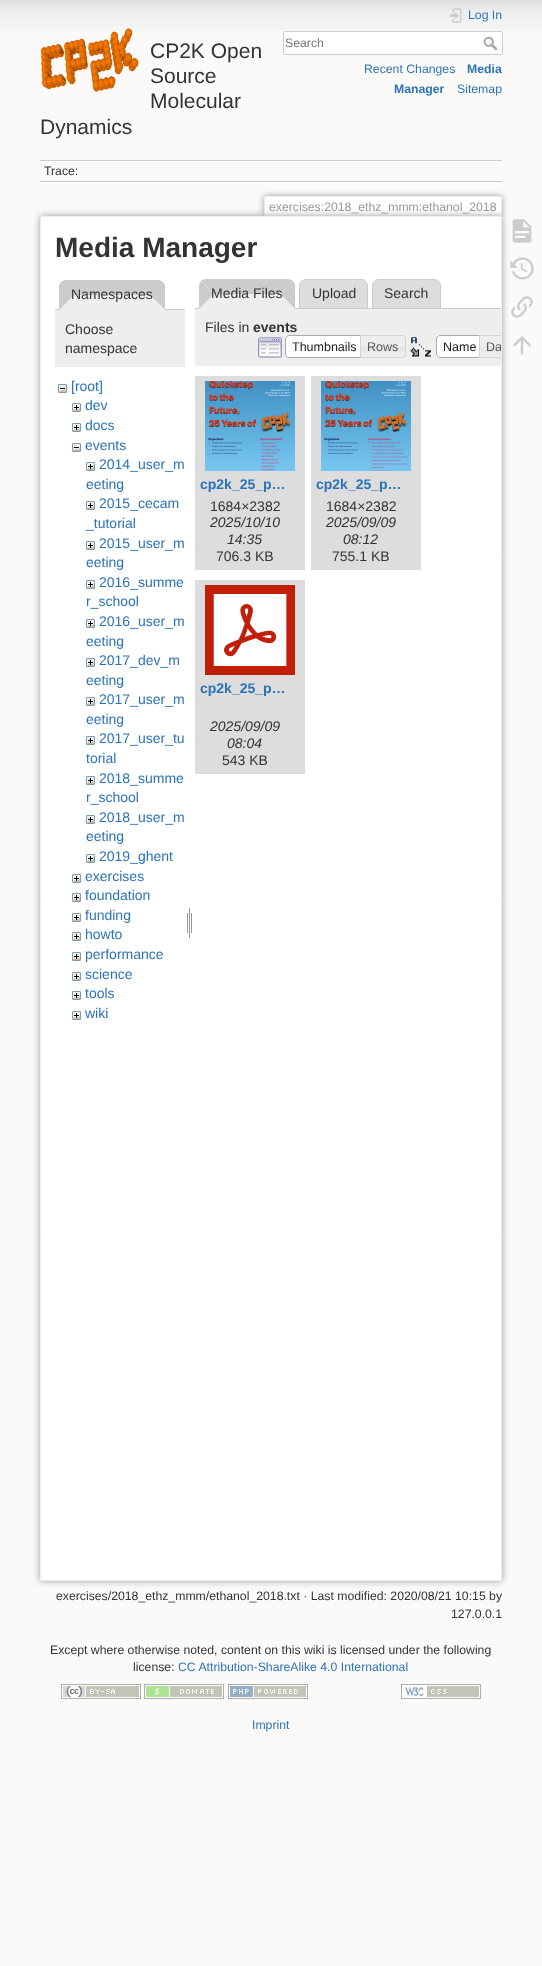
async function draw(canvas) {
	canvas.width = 542;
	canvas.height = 1966;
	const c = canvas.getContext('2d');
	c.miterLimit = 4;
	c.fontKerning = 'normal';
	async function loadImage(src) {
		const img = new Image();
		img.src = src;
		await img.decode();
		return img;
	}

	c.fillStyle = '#fbfaf9';
	c.fillRect(0, 0, 542, 1966);
	c.drawImage(await loadImage('img1.png'), 0, 0, 542, 31);
	c.drawImage(await loadImage('img2.png'), 40, 28, 99, 64);
	c.font = '21px Liberation Sans';
	c.fillStyle = '#333';
	for (const [text, x, y] of [
		['CP2K Open', 150, 58],
		['Source', 150, 83],
		['Molecular', 150, 108],
		['Dynamics', 40, 134],
	]) {
		c.fillText(text, x, y);
	}
	c.drawImage(await loadImage('img3.png'), 450, 8, 12, 15);
	c.font = '12.25px Liberation Sans';
	c.fillStyle = '#2b73b7';
	c.fillText('Log In', 468, 19);
	c.fillStyle = '#fff';
	c.beginPath();
	c.roundRect(283.5, 31.5, 219, 23, 1.5);
	c.fill();
	c.strokeStyle = '#ccc';
	c.stroke();
	c.fillStyle = '#757575';
	c.fillText('Search', 285, 47);
	c.drawImage(await loadImage('img4.png'), 483, 36, 14, 14);
	c.fillStyle = '#2b73b7';
	c.fillText('Recent Changes', 364, 73);
	c.font = 'bold 12.25px Liberation Sans';
	c.fillText('Media', 467, 73);
	c.fillText('Manager', 394, 93);
	c.font = '12.25px Liberation Sans';
	c.fillText('Sitemap', 457, 93);
	for (const [x, y, w, h, color] of [
		[40, 160, 462, 1, '#ccc'],
		[40, 182, 462, 1, '#fff'],
		[40, 161, 462, 1, '#fff'],
		[40, 181, 462, 1, '#ccc'],
	]) {
		c.fillStyle = color;
		c.fillRect(x, y, w, h);
	}
	c.fillStyle = '#333';
	c.fillText('Trace:', 44, 175);
	c.save();
	c.beginPath();
	c.rect(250, 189, 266, 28);
	c.clip();
	c.fillStyle = '#999';
	c.filter = 'blur(3px)';
	c.beginPath();
	c.roundRect(264, 196, 238, 21, 2);
	c.fill();
	c.filter = 'none';
	c.restore();
	c.fillStyle = '#fff';
	c.beginPath();
	c.roundRect(265, 197, 236, 20, [1, 1, 0, 0]);
	c.fill();
	for (const [x, y, w, h, color] of [
		[265, 196, 236, 1, '#eee'],
		[501, 197, 1, 20, '#eee'],
		[264, 197, 1, 20, '#eee'],
	]) {
		c.fillStyle = color;
		c.fillRect(x, y, w, h);
	}
	c.fillStyle = '#999';
	c.fillText('exercises:2018_ethz_mmm:ethanol_2018', 269, 211);
	c.filter = 'blur(3.5px)';
	c.beginPath();
	c.roundRect(40, 216, 462, 1365, 2);
	c.fill();
	c.filter = 'none';
	c.fillStyle = '#fff';
	c.beginPath();
	c.roundRect(40.5, 216.5, 461, 1364, 1.5);
	c.fill();
	c.strokeStyle = '#eee';
	c.stroke();
	c.font = 'bold 28px Liberation Sans';
	c.fillStyle = '#333';
	c.fillText('Media Manager', 55, 257);
	c.fillStyle = '#ccc';
	c.fillRect(55, 309, 130, 1);
	c.fillStyle = '#eee';
	c.beginPath();
	c.roundRect(59, 280, 106, 30, [7, 7, 0, 0]);
	c.fill();
	c.fillStyle = '#ccc';
	c.beginPath();
	c.moveTo(66, 280);
	c.lineTo(159, 280);
	c.lineTo(163, 282);
	c.lineTo(150, 295);
	c.lineTo(74, 295);
	c.lineTo(61, 282);
	c.bezierCurveTo(62, 281, 64, 280, 66, 280);
	c.closePath();
	c.fill();
	c.beginPath();
	c.moveTo(163, 282);
	c.lineTo(150, 295);
	c.lineTo(165, 310);
	c.lineTo(165, 287);
	c.bezierCurveTo(165, 285, 164, 283, 163, 282);
	c.closePath();
	c.fill();
	c.fillStyle = '#eee';
	c.beginPath();
	c.moveTo(165, 310);
	c.lineTo(150, 295);
	c.lineTo(74, 295);
	c.lineTo(59, 310);
	c.closePath();
	c.fill();
	c.fillStyle = '#ccc';
	c.beginPath();
	c.moveTo(59, 310);
	c.lineTo(59, 287);
	c.bezierCurveTo(59, 285, 60, 283, 61, 282);
	c.lineTo(74, 295);
	c.closePath();
	c.fill();
	c.font = '14px Liberation Sans';
	c.fillStyle = '#333';
	c.fillText('Namespaces', 71, 299);
	c.fillStyle = '#eee';
	c.fillRect(55, 310, 130, 57);
	c.fillStyle = '#333';
	c.fillText('Choose', 65, 334);
	c.fillText('namespace', 65, 353);
	c.drawImage(await loadImage('img5.png'), 58, 384, 9, 9);
	c.fillStyle = '#2b73b7';
	c.fillText('[root]', 71, 391);
	c.drawImage(await loadImage('img6.png'), 72, 403, 9, 9);
	c.fillText('dev', 85, 410);
	c.drawImage(await loadImage('img6.png'), 72, 423, 9, 9);
	c.fillText('docs', 85, 430);
	c.drawImage(await loadImage('img5.png'), 72, 443, 9, 9);
	c.fillText('events', 85, 450);
	c.drawImage(await loadImage('img6.png'), 86, 462, 9, 9);
	c.fillText('2014_user_m', 99, 469);
	c.fillText('eeting', 86, 489);
	c.drawImage(await loadImage('img6.png'), 86, 501, 9, 9);
	c.fillText('2015_cecam', 99, 508);
	c.fillText('_tutorial', 86, 528);
	c.drawImage(await loadImage('img6.png'), 86, 541, 9, 9);
	c.fillText('2015_user_m', 99, 548);
	c.fillText('eeting', 86, 567);
	c.drawImage(await loadImage('img6.png'), 86, 580, 9, 9);
	c.fillText('2016_summe', 99, 587);
	c.fillText('r_school', 86, 606);
	c.drawImage(await loadImage('img6.png'), 86, 619, 9, 9);
	c.fillText('2016_user_m', 99, 626);
	c.fillText('eeting', 86, 646);
	c.drawImage(await loadImage('img6.png'), 86, 658, 9, 9);
	c.fillText('2017_dev_m', 99, 665);
	c.fillText('eeting', 86, 685);
	c.drawImage(await loadImage('img6.png'), 86, 697, 9, 9);
	c.fillText('2017_user_m', 99, 704);
	c.fillText('eeting', 86, 724);
	c.drawImage(await loadImage('img6.png'), 86, 736, 9, 9);
	c.fillText('2017_user_tu', 99, 743);
	c.fillText('torial', 86, 763);
	c.drawImage(await loadImage('img6.png'), 86, 776, 9, 9);
	c.fillText('2018_summe', 99, 783);
	c.fillText('r_school', 86, 802);
	c.drawImage(await loadImage('img6.png'), 86, 815, 9, 9);
	c.fillText('2018_user_m', 99, 822);
	c.fillText('eeting', 86, 841);
	c.drawImage(await loadImage('img6.png'), 86, 854, 9, 9);
	c.fillText('2019_ghent', 99, 861);
	c.drawImage(await loadImage('img6.png'), 72, 874, 9, 9);
	c.fillText('exercises', 85, 881);
	c.drawImage(await loadImage('img6.png'), 72, 893, 9, 9);
	c.fillText('foundation', 85, 900);
	c.drawImage(await loadImage('img6.png'), 72, 913, 9, 9);
	c.fillText('funding', 85, 920);
	c.drawImage(await loadImage('img6.png'), 72, 932, 9, 9);
	c.fillText('howto', 85, 939);
	c.drawImage(await loadImage('img6.png'), 72, 952, 9, 9);
	c.fillText('performance', 85, 959);
	c.drawImage(await loadImage('img6.png'), 72, 972, 9, 9);
	c.fillText('science', 85, 979);
	c.drawImage(await loadImage('img6.png'), 72, 991, 9, 9);
	c.fillText('tools', 85, 998);
	c.drawImage(await loadImage('img6.png'), 72, 1011, 9, 9);
	c.fillText('wiki', 85, 1018);
	c.drawImage(await loadImage('img7.png'), 187, 907, 5, 31);
	c.fillStyle = '#ccc';
	c.beginPath();
	c.moveTo(206, 279);
	c.lineTo(288, 279);
	c.bezierCurveTo(290, 279, 292, 280, 293, 281);
	c.lineTo(280, 294);
	c.lineTo(214, 294);
	c.lineTo(201, 281);
	c.bezierCurveTo(202, 280, 204, 279, 206, 279);
	c.closePath();
	c.fill();
	c.fillStyle = '#ddd';
	c.beginPath();
	c.roundRect(299.5, 279.5, 68, 29, [6.5, 6.5, 0, 0]);
	c.fill();
	c.strokeStyle = '#ccc';
	c.stroke();
	c.beginPath();
	c.roundRect(372.5, 279.5, 68, 29, [6.5, 6.5, 0, 0]);
	c.fill();
	c.stroke();
	c.fillStyle = '#ccc';
	c.fillRect(195, 308, 306, 1);
	c.beginPath();
	c.moveTo(293, 281);
	c.lineTo(280, 294);
	c.lineTo(295, 309);
	c.lineTo(295, 286);
	c.bezierCurveTo(295, 284, 294, 282, 293, 281);
	c.closePath();
	c.fill();
	c.fillStyle = '#eee';
	c.beginPath();
	c.moveTo(295, 309);
	c.lineTo(280, 294);
	c.lineTo(214, 294);
	c.lineTo(199, 309);
	c.closePath();
	c.fill();
	c.fillStyle = '#ccc';
	c.beginPath();
	c.moveTo(199, 309);
	c.lineTo(199, 286);
	c.bezierCurveTo(199, 284, 200, 282, 201, 281);
	c.lineTo(214, 294);
	c.closePath();
	c.fill();
	c.fillStyle = '#333';
	for (const [text, x, y] of [
		['Media Files', 211, 298],
		['Upload', 312, 298],
		['Search', 384, 298],
	]) {
		c.fillText(text, x, y);
	}
	c.fillStyle = '#eee';
	c.fillRect(195, 309, 306, 57);
	c.fillStyle = '#333';
	c.fillText('Files in', 205, 332);
	c.font = 'bold 14px Liberation Sans';
	c.fillText('events', 253, 332);
	c.drawImage(await loadImage('img8.png'), 258, 337, 24, 21);
	c.fillStyle = '#fff';
	c.fillRect(285, 335, 75, 23);
	c.beginPath();
	c.roundRect(285.5, 335.5, 79, 22, [3.5, 0, 0, 3.5]);
	c.strokeStyle = '#aaa';
	c.stroke();
	c.font = '12.5px Liberation Sans';
	c.fillStyle = '#212121';
	c.fillText('Thumbnails', 292, 351);
	c.drawImage(await loadImage('img9.png'), 361, 335, 45, 23);
	c.beginPath();
	c.roundRect(360.5, 335.5, 45, 22, [0, 3.5, 3.5, 0]);
	c.strokeStyle = '#d3d3d3';
	c.stroke();
	c.fillStyle = '#555';
	c.fillText('Rows', 367, 351);
	c.drawImage(await loadImage('img10.png'), 410, 337, 21, 20);
	c.fillStyle = '#fff';
	c.fillRect(436, 335, 43, 23);
	c.beginPath();
	c.roundRect(436.5, 335.5, 47, 22, [3.5, 0, 0, 3.5]);
	c.strokeStyle = '#aaa';
	c.stroke();
	c.fillStyle = '#212121';
	c.fillText('Name', 443, 351);
	c.drawImage(await loadImage('img11.png'), 480, 336, 21, 21);
	c.fillStyle = '#d3d3d3';
	c.beginPath();
	c.moveTo(479, 335);
	c.lineTo(479, 358);
	c.lineTo(501, 358);
	c.lineTo(501, 357);
	c.lineTo(480, 357);
	c.lineTo(480, 336);
	c.lineTo(501, 336);
	c.lineTo(501, 335);
	c.closePath();
	c.fill();
	c.save();
	c.beginPath();
	c.roundRect(41, 217, 460, 1363, 1);
	c.clip();
	c.fillStyle = '#555';
	c.fillText('Da', 486, 351);
	c.restore();
	c.fillStyle = '#ddd';
	c.fillRect(195, 376, 110, 194);
	c.drawImage(await loadImage('img12.png'), 205, 381, 90, 90);
	c.font = 'bold 14px Liberation Sans';
	c.fillStyle = '#2b73b7';
	c.fillText('cp2k_25_p…', 200, 489);
	c.font = '14px Liberation Sans';
	c.fillStyle = '#333';
	c.fillText('1684×2382', 210, 511);
	c.font = 'italic 14px Liberation Sans';
	c.fillText('2025/10/10', 210, 527);
	c.fillText('14:35', 227, 544);
	c.font = '14px Liberation Sans';
	c.fillText('706.3 KB', 216, 561);
	c.fillStyle = '#ddd';
	c.fillRect(311, 376, 110, 194);
	c.drawImage(await loadImage('img13.png'), 321, 381, 90, 90);
	c.font = 'bold 14px Liberation Sans';
	c.fillStyle = '#2b73b7';
	c.fillText('cp2k_25_p…', 316, 489);
	c.font = '14px Liberation Sans';
	c.fillStyle = '#333';
	c.fillText('1684×2382', 326, 511);
	c.font = 'italic 14px Liberation Sans';
	c.fillText('2025/09/09', 326, 527);
	c.fillText('08:12', 343, 544);
	c.font = '14px Liberation Sans';
	c.fillText('755.1 KB', 332, 561);
	c.fillStyle = '#ddd';
	c.fillRect(195, 580, 110, 194);
	c.drawImage(await loadImage('img14.png'), 205, 585, 90, 90);
	c.font = 'bold 14px Liberation Sans';
	c.fillStyle = '#2b73b7';
	c.fillText('cp2k_25_p…', 200, 693);
	c.font = 'italic 14px Liberation Sans';
	c.fillStyle = '#333';
	c.fillText('2025/09/09', 210, 731);
	c.fillText('08:04', 227, 748);
	c.font = '14px Liberation Sans';
	c.fillText('543 KB', 222, 765);
	c.font = '12.25px Liberation Sans';
	c.fillText('exercises/2018_ethz_mmm/ethanol_2018.txt · Last modified: 2020/08/21 10:15 by', 56, 1600);
	c.fillText('127.0.0.1', 451, 1618);
	c.drawImage(await loadImage('img15.png'), 512, 219, 20, 24);
	c.drawImage(await loadImage('img16.png'), 510, 257, 24, 23);
	c.drawImage(await loadImage('img17.png'), 511, 296, 22, 22);
	c.drawImage(await loadImage('img18.png'), 513, 336, 18, 19);
	c.fillText('Except where otherwise noted, content on this wiki is licensed under the following', 50, 1654);
	c.fillText('license:', 133, 1671);
	c.fillStyle = '#2b73b7';
	c.fillText('CC Attribution-ShareAlike 4.0 International', 178, 1671);
	c.drawImage(await loadImage('img19.png'), 61, 1684, 80, 15);
	c.drawImage(await loadImage('img20.png'), 144, 1684, 80, 15);
	c.drawImage(await loadImage('img21.png'), 228, 1684, 80, 15);
	c.drawImage(await loadImage('img22.png'), 401, 1684, 80, 15);
	c.fillText('Imprint', 252, 1729);
}

draw(document.querySelector('canvas'));
